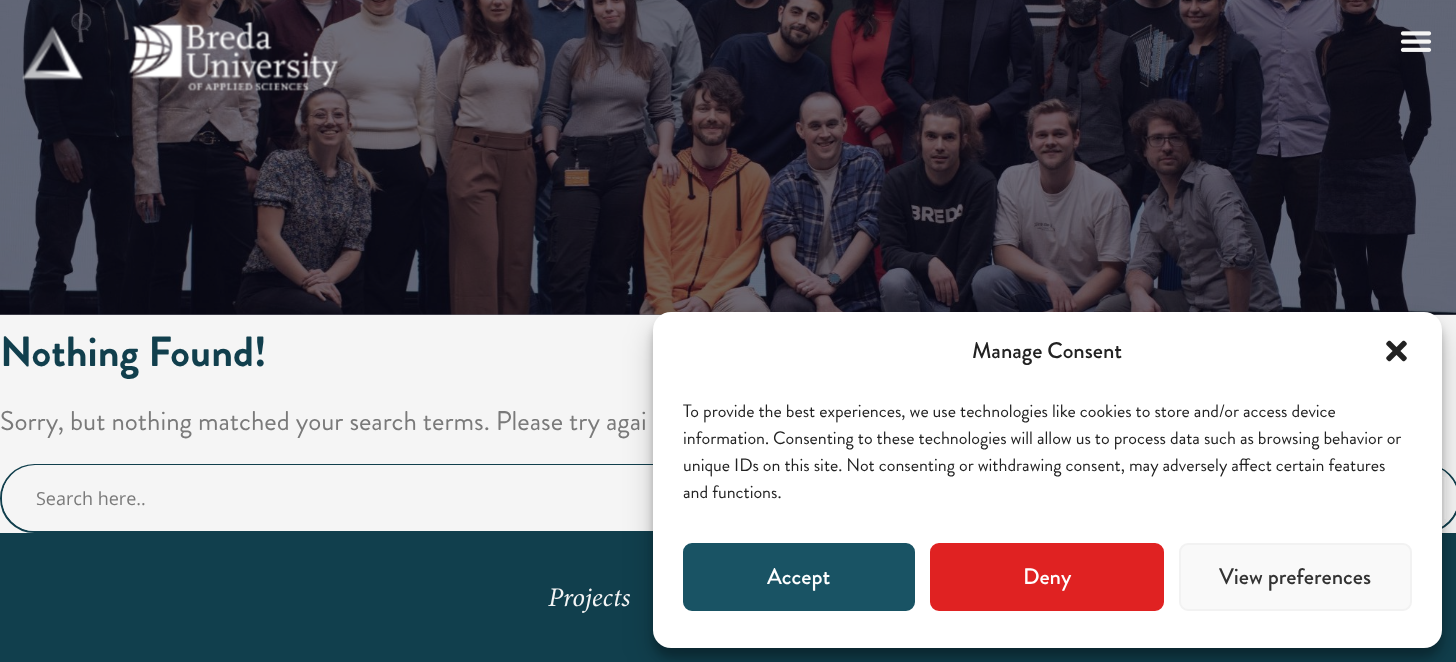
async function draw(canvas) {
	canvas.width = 1456;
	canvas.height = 662;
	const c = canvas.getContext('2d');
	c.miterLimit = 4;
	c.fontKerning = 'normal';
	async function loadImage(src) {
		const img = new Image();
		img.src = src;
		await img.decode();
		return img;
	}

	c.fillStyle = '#f5f5f5';
	c.fillRect(0, 0, 1456, 662);
	c.fillStyle = '#696975';
	c.fillRect(0, 314, 1456, 1);
	c.drawImage(await loadImage('img1.png'), 0, 0, 1456, 315);
	c.drawImage(await loadImage('img2.png'), 22, 26, 61, 55);
	c.drawImage(await loadImage('img3.png'), 128, 22, 210, 69);
	c.drawImage(await loadImage('img4.png'), 1400, 31, 32, 21);
	c.font = 'bold 42px Brandon Grotesque';
	c.fillStyle = '#113f4d';
	c.fillText('Nothing Found!', 0, 366);
	c.font = '27px Brandon Grotesque';
	c.fillStyle = '#7a7a7a';
	c.fillText('Sorry, but nothing matched your search terms. Please try agai', 0, 430);
	c.beginPath();
	c.roundRect(1, 465, 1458, 67, 33.5);
	c.strokeStyle = '#113f4d';
	c.lineWidth = 2;
	c.stroke();
	c.fillStyle = '#f5f5f5';
	c.beginPath();
	c.roundRect(2, 465, 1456, 66, 33);
	c.fill();
	c.font = '18px Open Sans';
	c.fillStyle = '#7a7a7a';
	c.fillText('Search here..', 36, 505);
	c.save();
	c.beginPath();
	c.rect(1404, 477, 42, 42);
	c.clip();
	c.fillStyle = '#fbfbfb';
	c.beginPath();
	c.moveTo(1256, 531);
	c.lineTo(1425, 531);
	c.bezierCurveTo(1443, 531, 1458, 516, 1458, 498);
	c.bezierCurveTo(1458, 480, 1443, 465, 1425, 465);
	c.lineTo(1256, 465);
	c.closePath();
	c.moveTo(1402, 478);
	c.lineTo(1444, 478);
	c.lineTo(1444, 520);
	c.lineTo(1402, 520);
	c.closePath();
	c.fill('evenodd');
	c.restore();
	c.fillStyle = '#113f4d';
	c.fillRect(0, 533, 1456, 129);
	c.fillStyle = '#0000003b';
	c.filter = 'blur(4.5px)';
	c.beginPath();
	c.roundRect(653, 321, 789, 336, 18);
	c.fill();
	c.filter = 'none';
	c.fillStyle = '#00000030';
	c.filter = 'blur(15px)';
	c.beginPath();
	c.roundRect(653, 327, 789, 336, 18);
	c.fill();
	c.filter = 'none';
	c.fillStyle = '#fff';
	c.beginPath();
	c.roundRect(653, 312, 789, 336, 18);
	c.fill();
	c.font = '500 22.5px Brandon Grotesque';
	c.fillStyle = '#222';
	c.fillText('Manage Consent', 972, 358);
	c.drawImage(await loadImage('img5.png'), 1386, 340, 21, 22);
	c.font = '18px Brandon Grotesque';
	for (const [text, x, y] of [
		['To provide the best experiences, we use technologies like cookies to store and/or access device', 683, 417],
		['information. Consenting to these technologies will allow us to process data such as browsing behavior or', 683, 444],
		['unique IDs on this site. Not consenting or withdrawing consent, may adversely affect certain features', 683, 471],
		['and functions.', 683, 498],
	]) {
		c.fillText(text, x, y);
	}
	c.fillStyle = '#195364';
	c.beginPath();
	c.roundRect(684, 544, 230, 66, 8);
	c.fill();
	c.strokeStyle = '#195364';
	c.stroke();
	c.font = '500 22.5px Brandon Grotesque';
	c.fillStyle = '#fff';
	c.fillText('Accept', 767, 584);
	c.fillStyle = '#e02222';
	c.beginPath();
	c.roundRect(931, 544, 232, 66, 8);
	c.fill();
	c.strokeStyle = '#e02222';
	c.stroke();
	c.fillStyle = '#fff';
	c.fillText('Deny', 1023, 584);
	c.fillStyle = '#f9f9f9';
	c.beginPath();
	c.roundRect(1180, 544, 231, 66, 8);
	c.fill();
	c.strokeStyle = '#f2f2f2';
	c.stroke();
	c.fillStyle = '#333';
	c.fillText('View preferences', 1219, 584);
	c.font = 'italic 27px Minion';
	c.fillStyle = '#f5f5f5';
	c.fillText('Projects', 548, 606);
}

draw(document.querySelector('canvas'));
